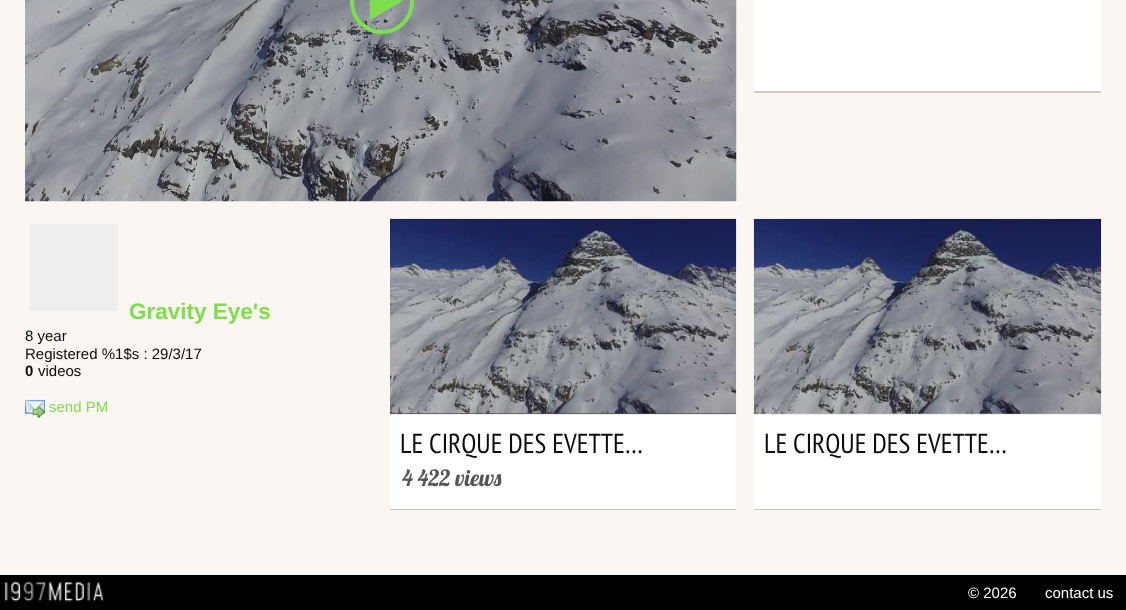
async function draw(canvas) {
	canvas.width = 1126;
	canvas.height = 610;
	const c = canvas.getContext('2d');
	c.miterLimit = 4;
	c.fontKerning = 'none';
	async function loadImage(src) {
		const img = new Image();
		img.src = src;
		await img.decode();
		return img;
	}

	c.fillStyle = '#fbf6f2';
	c.fillRect(0, 0, 1126, 610);
	c.drawImage(await loadImage('img1.png'), 25, 0, 712, 202);
	c.beginPath();
	c.arc(382, 2, 30, 0, 2 * Math.PI);
	c.strokeStyle = '#7ede4e';
	c.lineWidth = 4;
	c.stroke();
	c.fillStyle = '#7ede4e';
	c.beginPath();
	c.moveTo(370, 20);
	c.lineTo(370, -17.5);
	c.lineTo(402.5, 1);
	c.closePath();
	c.fill();
	c.fillStyle = '#0000002e';
	c.filter = 'blur(0.5px)';
	c.beginPath();
	c.rect(754, -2, 347, 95);
	c.fill();
	c.filter = 'none';
	c.fillStyle = '#fff';
	c.fillRect(754, 0, 347, 91);
	c.fillStyle = '#eee';
	c.fillRect(30, 224, 88, 87);
	c.font = 'bold 22.5px Liberation Sans';
	c.fillStyle = '#7ede4e';
	c.fillText('Gravity Eye\'s', 129, 319);
	c.font = '15px Liberation Sans';
	c.fillStyle = '#0c0c0c';
	c.fillText('8 year', 25, 341);
	c.fillText('Registered %1$s : 29/3/17', 25, 359);
	c.font = 'bold 15px Liberation Sans';
	c.fillText('0', 25, 376);
	c.font = '15px Liberation Sans';
	c.fillText('videos', 38, 376);
	c.drawImage(await loadImage('img2.png'), 25, 399, 20, 19);
	c.fillStyle = '#7ede4e';
	c.fillText('send PM', 49, 412);
	c.fillStyle = '#0000002e';
	c.filter = 'blur(0.5px)';
	c.beginPath();
	c.rect(390, 220, 346, 290);
	c.fill();
	c.filter = 'none';
	c.drawImage(await loadImage('img3.png'), 390, 218, 347, 196);
	c.fillStyle = '#fff';
	c.fillRect(390, 415, 346, 94);
	c.fillStyle = '#eee';
	c.fillRect(390, 414, 346, 1);
	c.font = '27.5px PT Sans Narrow';
	c.fillStyle = '#0c0c0c';
	c.fillText('LE CIRQUE DES EVETTE…', 400, 453);
	c.font = '22.5px Lobster';
	c.fillStyle = '#555';
	c.fillText('4 422 views', 402, 486);
	c.fillStyle = '#0000002e';
	c.filter = 'blur(0.5px)';
	c.beginPath();
	c.rect(754, 220, 347, 290);
	c.fill();
	c.filter = 'none';
	c.drawImage(await loadImage('img4.png'), 753, 218, 349, 196);
	c.fillStyle = '#fff';
	c.fillRect(754, 415, 347, 94);
	c.fillStyle = '#eee';
	c.fillRect(754, 414, 347, 1);
	c.font = '27.5px PT Sans Narrow';
	c.fillStyle = '#0c0c0c';
	c.fillText('LE CIRQUE DES EVETTE…', 764, 453);
	c.fillStyle = '#000';
	c.fillRect(0, 575, 1126, 35);
	c.drawImage(await loadImage('img5.png'), 4, 581, 100, 21);
	c.font = '15px Liberation Sans';
	c.fillStyle = '#fff';
	c.fillText('© 2026', 968, 598);
	c.fillText('contact us', 1045, 598);
}

draw(document.querySelector('canvas'));
